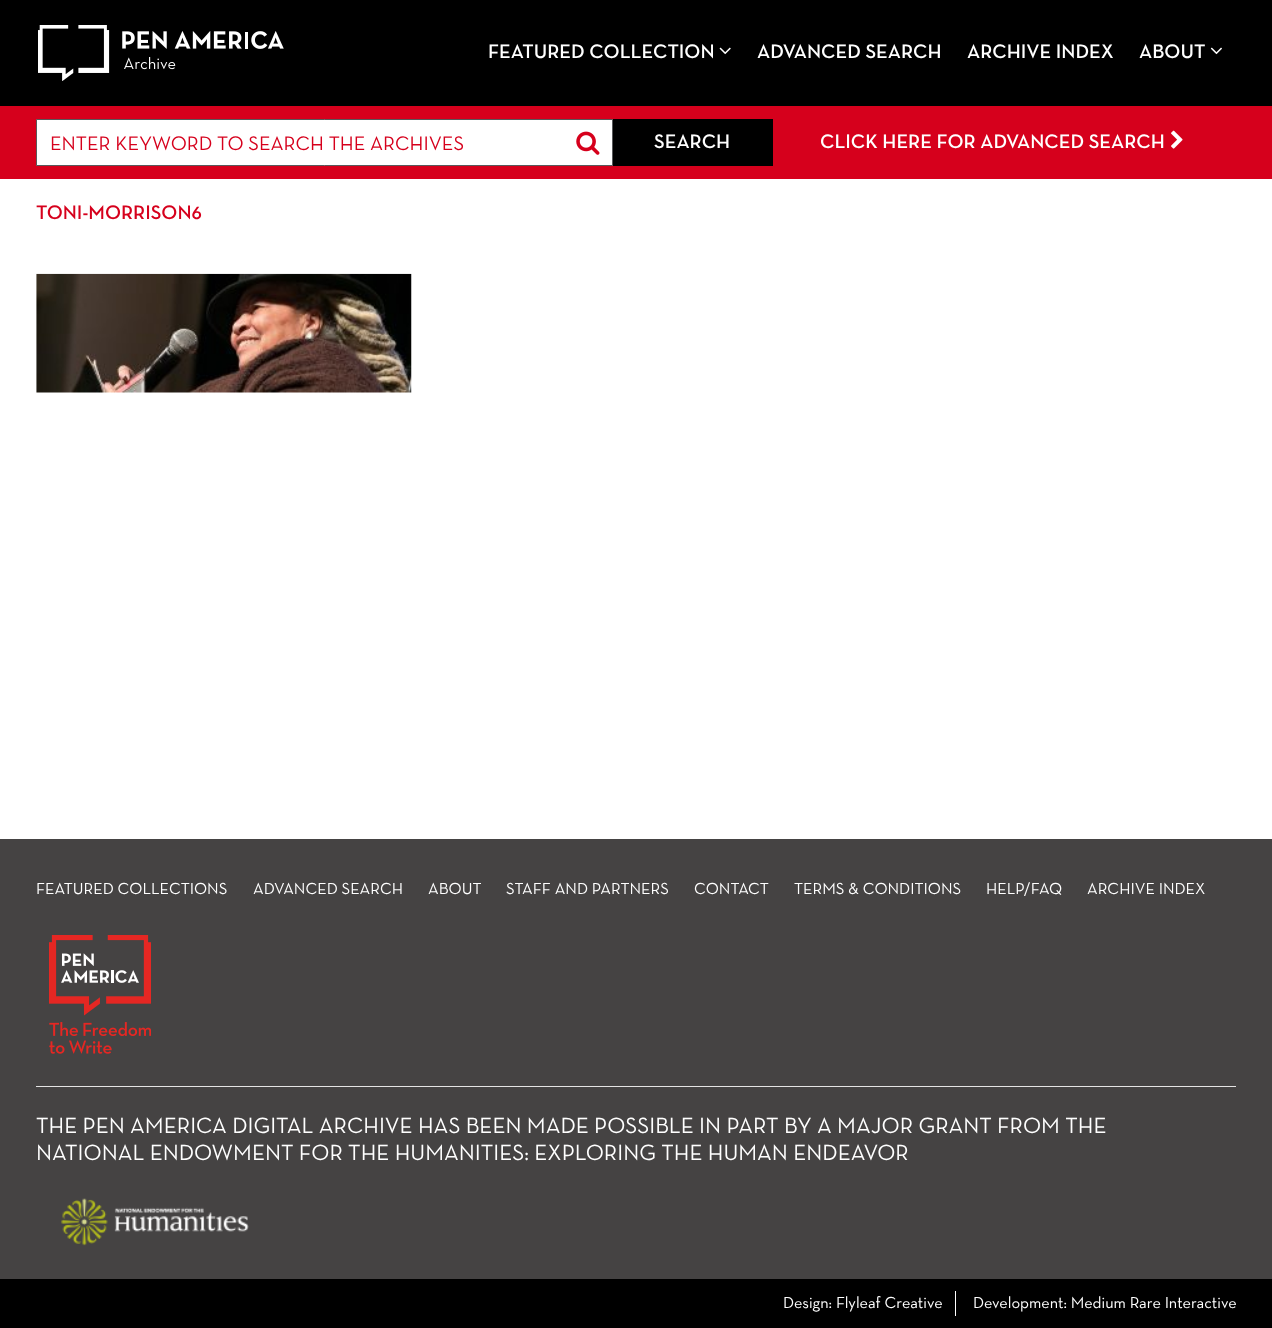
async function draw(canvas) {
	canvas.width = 1272;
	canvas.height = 1328;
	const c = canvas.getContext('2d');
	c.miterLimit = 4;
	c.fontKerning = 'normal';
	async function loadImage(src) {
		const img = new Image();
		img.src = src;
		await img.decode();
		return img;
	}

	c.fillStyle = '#fff';
	c.fillRect(0, 0, 1272, 1328);
	c.fillStyle = '#000';
	c.fillRect(0, 0, 1272, 106);
	c.drawImage(await loadImage('img1.png'), 38, 25, 246, 56);
	c.font = '600 20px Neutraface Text';
	c.fillStyle = '#fff';
	c.fillText('FEATURED COLLECTION', 488, 58);
	c.drawImage(await loadImage('img2.png'), 719, 47, 12, 8);
	for (const [text, x, y] of [
		['ADVANCED SEARCH', 757, 58],
		['ARCHIVE INDEX', 967, 58],
		['ABOUT', 1139, 58],
	]) {
		c.fillText(text, x, y);
	}
	c.drawImage(await loadImage('img3.png'), 1210, 47, 12, 8);
	c.fillStyle = '#d6001c';
	c.fillRect(0, 106, 1272, 73);
	c.fillStyle = '#fff';
	c.beginPath();
	c.rect(36.5, 119.5, 576, 46);
	c.fill();
	c.strokeStyle = '#58595b';
	c.stroke();
	c.font = '20px Neutraface Text';
	c.fillStyle = '#d6001c';
	c.fillText('ENTER KEYWORD TO SEARCH THE ARCHIVES', 50, 150);
	c.drawImage(await loadImage('img4.png'), 576, 131, 24, 24);
	c.fillStyle = '#000';
	c.fillRect(613, 119, 160, 47);
	c.font = '600 20px Neutraface Text';
	c.fillStyle = '#fff';
	c.fillText('SEARCH', 654, 148);
	c.fillText('CLICK HERE FOR ADVANCED SEARCH', 820, 148);
	c.drawImage(await loadImage('img5.png'), 1171, 130, 12, 19);
	c.fillStyle = '#d6001c';
	c.fillText('TONI-MORRISON6', 36, 219);
	c.drawImage(await loadImage('img6.png'), 36, 273, 376, 120);
	c.fillStyle = '#454343';
	c.fillRect(0, 839, 1272, 440);
	c.font = '16.25px Neutraface Text';
	c.fillStyle = '#fff';
	for (const [text, x, y] of [
		['FEATURED COLLECTIONS', 36, 894],
		['ADVANCED SEARCH', 253, 894],
		['ABOUT', 428, 894],
		['STAFF AND PARTNERS', 506, 894],
		['CONTACT', 694, 894],
		['TERMS & CONDITIONS', 794, 894],
		['HELP/FAQ', 986, 894],
		['ARCHIVE INDEX', 1087, 894],
	]) {
		c.fillText(text, x, y);
	}
	c.drawImage(await loadImage('img7.png'), 49, 935, 102, 119);
	c.fillStyle = '#e4e4e4';
	c.fillRect(36, 1086, 1200, 1);
	c.font = '22.5px Neutraface Text';
	c.fillStyle = '#fff';
	c.fillText('THE PEN AMERICA DIGITAL ARCHIVE HAS BEEN MADE POSSIBLE IN PART BY A MAJOR GRANT FROM THE', 36, 1133);
	c.fillText('NATIONAL ENDOWMENT FOR THE HUMANITIES: EXPLORING THE HUMAN ENDEAVOR', 36, 1160);
	c.drawImage(await loadImage('img8.png'), 61, 1198, 188, 48);
	c.fillStyle = '#000';
	c.fillRect(0, 1279, 1272, 49);
	c.fillStyle = '#fff';
	c.fillRect(955, 1291, 1, 25);
	c.font = '16.25px Neutraface Text';
	c.fillText('Design: Flyleaf Creative', 783, 1308);
	c.fillText('Development: Medium Rare Interactive', 973, 1308);
}

draw(document.querySelector('canvas'));
